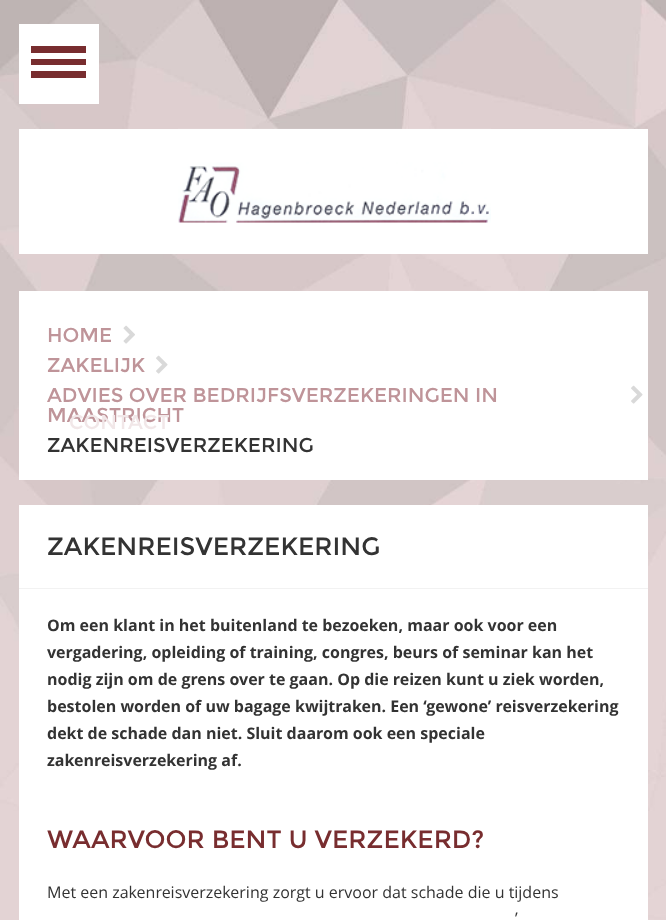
async function draw(canvas) {
	canvas.width = 666;
	canvas.height = 920;
	const c = canvas.getContext('2d');
	c.miterLimit = 4;
	c.fontKerning = 'normal';
	async function loadImage(src) {
		const img = new Image();
		img.src = src;
		await img.decode();
		return img;
	}

	c.fillStyle = '#fff';
	c.fillRect(0, 0, 666, 920);
	c.drawImage(await loadImage('img1.png'), 0, 0, 666, 920);
	c.fillRect(19, 291, 629, 189);
	c.font = '20px Montserrat';
	c.fillStyle = '#bf9499';
	c.fillText('HOME', 47, 342);
	c.drawImage(await loadImage('img2.png'), 123, 325, 12, 19);
	c.fillText('ZAKELIJK', 47, 372);
	c.drawImage(await loadImage('img3.png'), 156, 355, 12, 19);
	c.fillText('ADVIES OVER BEDRIJFSVERZEKERINGEN IN', 47, 402);
	c.drawImage(await loadImage('img3.png'), 631, 385, 12, 19);
	c.fillText('MAASTRICHT', 47, 422);
	c.fillStyle = '#333';
	c.fillText('ZAKENREISVERZEKERING', 47, 452);
	c.fillStyle = '#fff';
	c.fillRect(19, 505, 629, 415);
	c.fillStyle = '#f2f2f2';
	c.fillRect(19, 588, 629, 1);
	c.font = '25px Montserrat';
	c.fillStyle = '#333';
	c.fillText('ZAKENREISVERZEKERING', 47, 555);
	c.font = 'bold 16px Open Sans';
	for (const [text, x, y] of [
		['Om een klant in het buitenland te bezoeken, maar ook voor een', 47, 631],
		['vergadering, opleiding of training, congres, beurs of seminar kan het', 47, 658],
		['nodig zijn om de grens over te gaan. Op die reizen kunt u ziek worden,', 47, 685],
		['bestolen worden of uw bagage kwijtraken. Een ‘gewone’ reisverzekering', 47, 712],
		['dekt de schade dan niet. Sluit daarom ook een speciale', 47, 739],
		['zakenreisverzekering af.', 47, 766],
	]) {
		c.fillText(text, x, y);
	}
	c.font = '25px Montserrat';
	c.fillStyle = '#782d2f';
	c.fillText('WAARVOOR BENT U VERZEKERD?', 47, 848);
	c.font = '16px Open Sans';
	c.fillStyle = '#333';
	c.fillText('Met een zakenreisverzekering zorgt u ervoor dat schade die u tijdens', 47, 898);
	c.fillText('’', 515, 924);
	c.fillStyle = '#fff';
	c.fillRect(19, 129, 629, 125);
	c.drawImage(await loadImage('img4.png'), 178, 128, 313, 95);
	for (const [x, y, w, h, color] of [
		[19, 24, 80, 80, '#fff'],
		[31, 71, 55, 7, '#782d2f'],
		[31, 59, 55, 6, '#782d2f'],
		[31, 46, 55, 7, '#782d2f'],
	]) {
		c.fillStyle = color;
		c.fillRect(x, y, w, h);
	}
	c.font = '20px Montserrat';
	c.fillStyle = '#f1e7e8';
	c.fillText('CONTACT', 69, 429);
}

draw(document.querySelector('canvas'));
